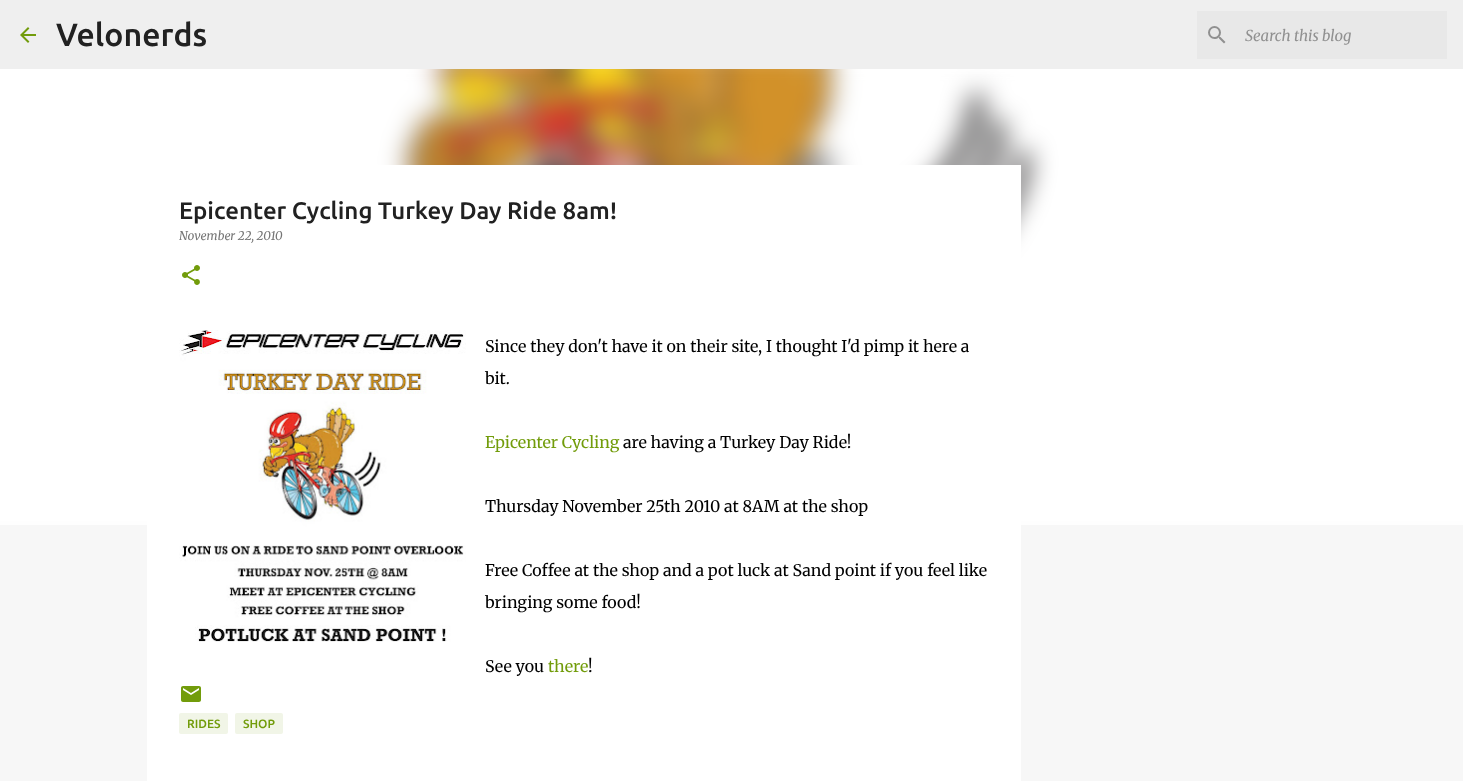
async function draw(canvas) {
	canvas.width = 1463;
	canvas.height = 781;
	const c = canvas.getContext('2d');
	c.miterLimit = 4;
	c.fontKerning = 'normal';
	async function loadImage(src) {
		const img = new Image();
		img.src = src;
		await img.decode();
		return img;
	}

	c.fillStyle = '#f7f7f7';
	c.fillRect(0, 0, 1463, 781);
	c.fillStyle = '#efefef';
	c.fillRect(0, 0, 1463, 69);
	c.drawImage(await loadImage('img1.png'), 20, 27, 16, 16);
	c.font = '500 32px Ubuntu';
	c.fillStyle = '#212121';
	c.fillText('Velonerds', 56, 46);
	c.fillStyle = '#e8e8e8';
	c.fillRect(1197, 11, 250, 48);
	c.drawImage(await loadImage('img2.png'), 1208, 26, 18, 18);
	c.font = 'italic 15px Merriweather';
	c.fillStyle = '#909090';
	c.fillText('Search this blog', 1245, 41);
	c.drawImage(await loadImage('img6.png'), 0, 69, 1463, 456);
	c.fillStyle = '#fff';
	c.fillRect(147, 165, 874, 616);
	c.font = '500 24px Ubuntu';
	c.fillStyle = '#212121';
	c.fillText('Epicenter Cycling Turkey Day Ride 8am!', 179, 219);
	c.font = 'italic 12px Merriweather';
	c.fillStyle = '#757575';
	c.fillText('November 22, 2010', 179, 240);
	c.drawImage(await loadImage('img3.png'), 182, 265, 18, 20);
	c.drawImage(await loadImage('img4.png'), 179, 330, 287, 312);
	c.font = '300 16px Merriweather';
	c.fillStyle = '#000';
	c.fillText('Since they don\'t have it on their site, I thought I\'d pimp it here a', 485, 352);
	c.fillText('bit.', 485, 384);
	c.fillStyle = '#729c0b';
	c.fillText('Epicenter Cycling', 485, 448);
	c.fillStyle = '#000';
	for (const [text, x, y] of [
		['are having a Turkey Day Ride!', 623, 448],
		['Thursday November 25th 2010 at 8AM at the shop', 485, 512],
		['Free Coffee at the shop and a pot luck at Sand point if you feel like', 485, 576],
		['bringing some food!', 485, 608],
		['See you', 485, 672],
	]) {
		c.fillText(text, x, y);
	}
	c.fillStyle = '#729c0b';
	c.fillText('there', 548, 672);
	c.fillStyle = '#000';
	c.fillText('!', 588, 672);
	c.drawImage(await loadImage('img5.png'), 181, 686, 20, 16);
	c.fillStyle = '#f1f5e7';
	c.beginPath();
	c.roundRect(179, 713, 49, 21, 2);
	c.fill();
	c.font = '500 12px Ubuntu';
	c.fillStyle = '#729c0b';
	c.fillText('RIDES', 187, 728);
	c.fillStyle = '#f1f5e7';
	c.beginPath();
	c.roundRect(235, 713, 48, 21, 2);
	c.fill();
	c.fillStyle = '#729c0b';
	c.fillText('SHOP', 243, 728);
}

draw(document.querySelector('canvas'));
